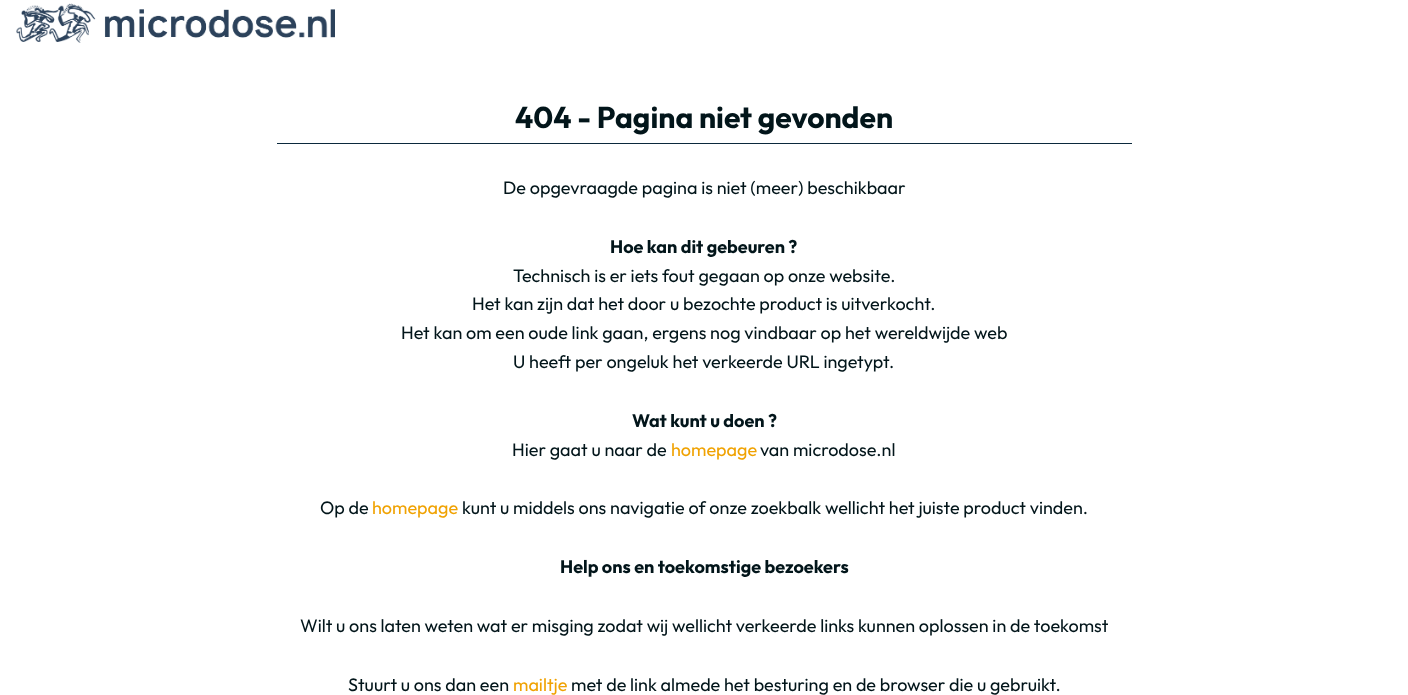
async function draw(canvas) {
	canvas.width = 1408;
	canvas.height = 695;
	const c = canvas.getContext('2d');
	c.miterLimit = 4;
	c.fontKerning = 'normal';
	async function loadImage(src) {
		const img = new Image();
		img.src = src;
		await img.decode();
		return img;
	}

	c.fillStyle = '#fff';
	c.fillRect(0, 0, 1408, 695);
	c.drawImage(await loadImage('img1.png'), 16, 3, 319, 40);
	c.font = 'bold 30px Outfit';
	c.fillStyle = '#02151a';
	c.fillText('404 - Pagina niet gevonden', 515, 128);
	c.fillStyle = '#0b293c';
	c.fillRect(277, 143, 855, 1);
	c.font = '18px Outfit';
	c.fillStyle = '#02151a';
	c.fillText('De opgevraagde pagina is niet (meer) beschikbaar', 503, 194);
	c.font = 'bold 18px Outfit';
	c.fillText('Hoe kan dit gebeuren ?', 610, 253);
	c.font = '18px Outfit';
	for (const [text, x, y] of [
		['Technisch is er iets fout gegaan op onze website.', 513, 282],
		['Het kan zijn dat het door u bezochte product is uitverkocht.', 472, 310],
		['Het kan om een oude link gaan, ergens nog vindbaar op het wereldwijde web', 401, 339],
		['U heeft per ongeluk het verkeerde URL ingetypt.', 513, 368],
	]) {
		c.fillText(text, x, y);
	}
	c.font = 'bold 18px Outfit';
	c.fillText('Wat kunt u doen ?', 632, 427);
	c.font = '18px Outfit';
	c.fillText('Hier gaat u naar de', 512, 456);
	c.fillStyle = '#f0a202';
	c.fillText('homepage', 671, 456);
	c.fillStyle = '#02151a';
	c.fillText('van microdose.nl', 760, 456);
	c.fillText('Op de', 320, 514);
	c.fillStyle = '#f0a202';
	c.fillText('homepage', 372, 514);
	c.fillStyle = '#02151a';
	c.fillText('kunt u middels ons navigatie of onze zoekbalk wellicht het juiste product vinden.', 462, 514);
	c.font = 'bold 18px Outfit';
	c.fillText('Help ons en toekomstige bezoekers', 560, 573);
	c.font = '18px Outfit';
	c.fillText('Wilt u ons laten weten wat er misging zodat wij wellicht verkeerde links kunnen oplossen in de toekomst', 300, 632);
	c.fillText('Stuurt u ons dan een', 348, 691);
	c.fillStyle = '#f0a202';
	c.fillText('mailtje', 513, 691);
	c.fillStyle = '#02151a';
	c.fillText('met de link almede het besturing en de browser die u gebruikt.', 571, 691);
}

draw(document.querySelector('canvas'));
